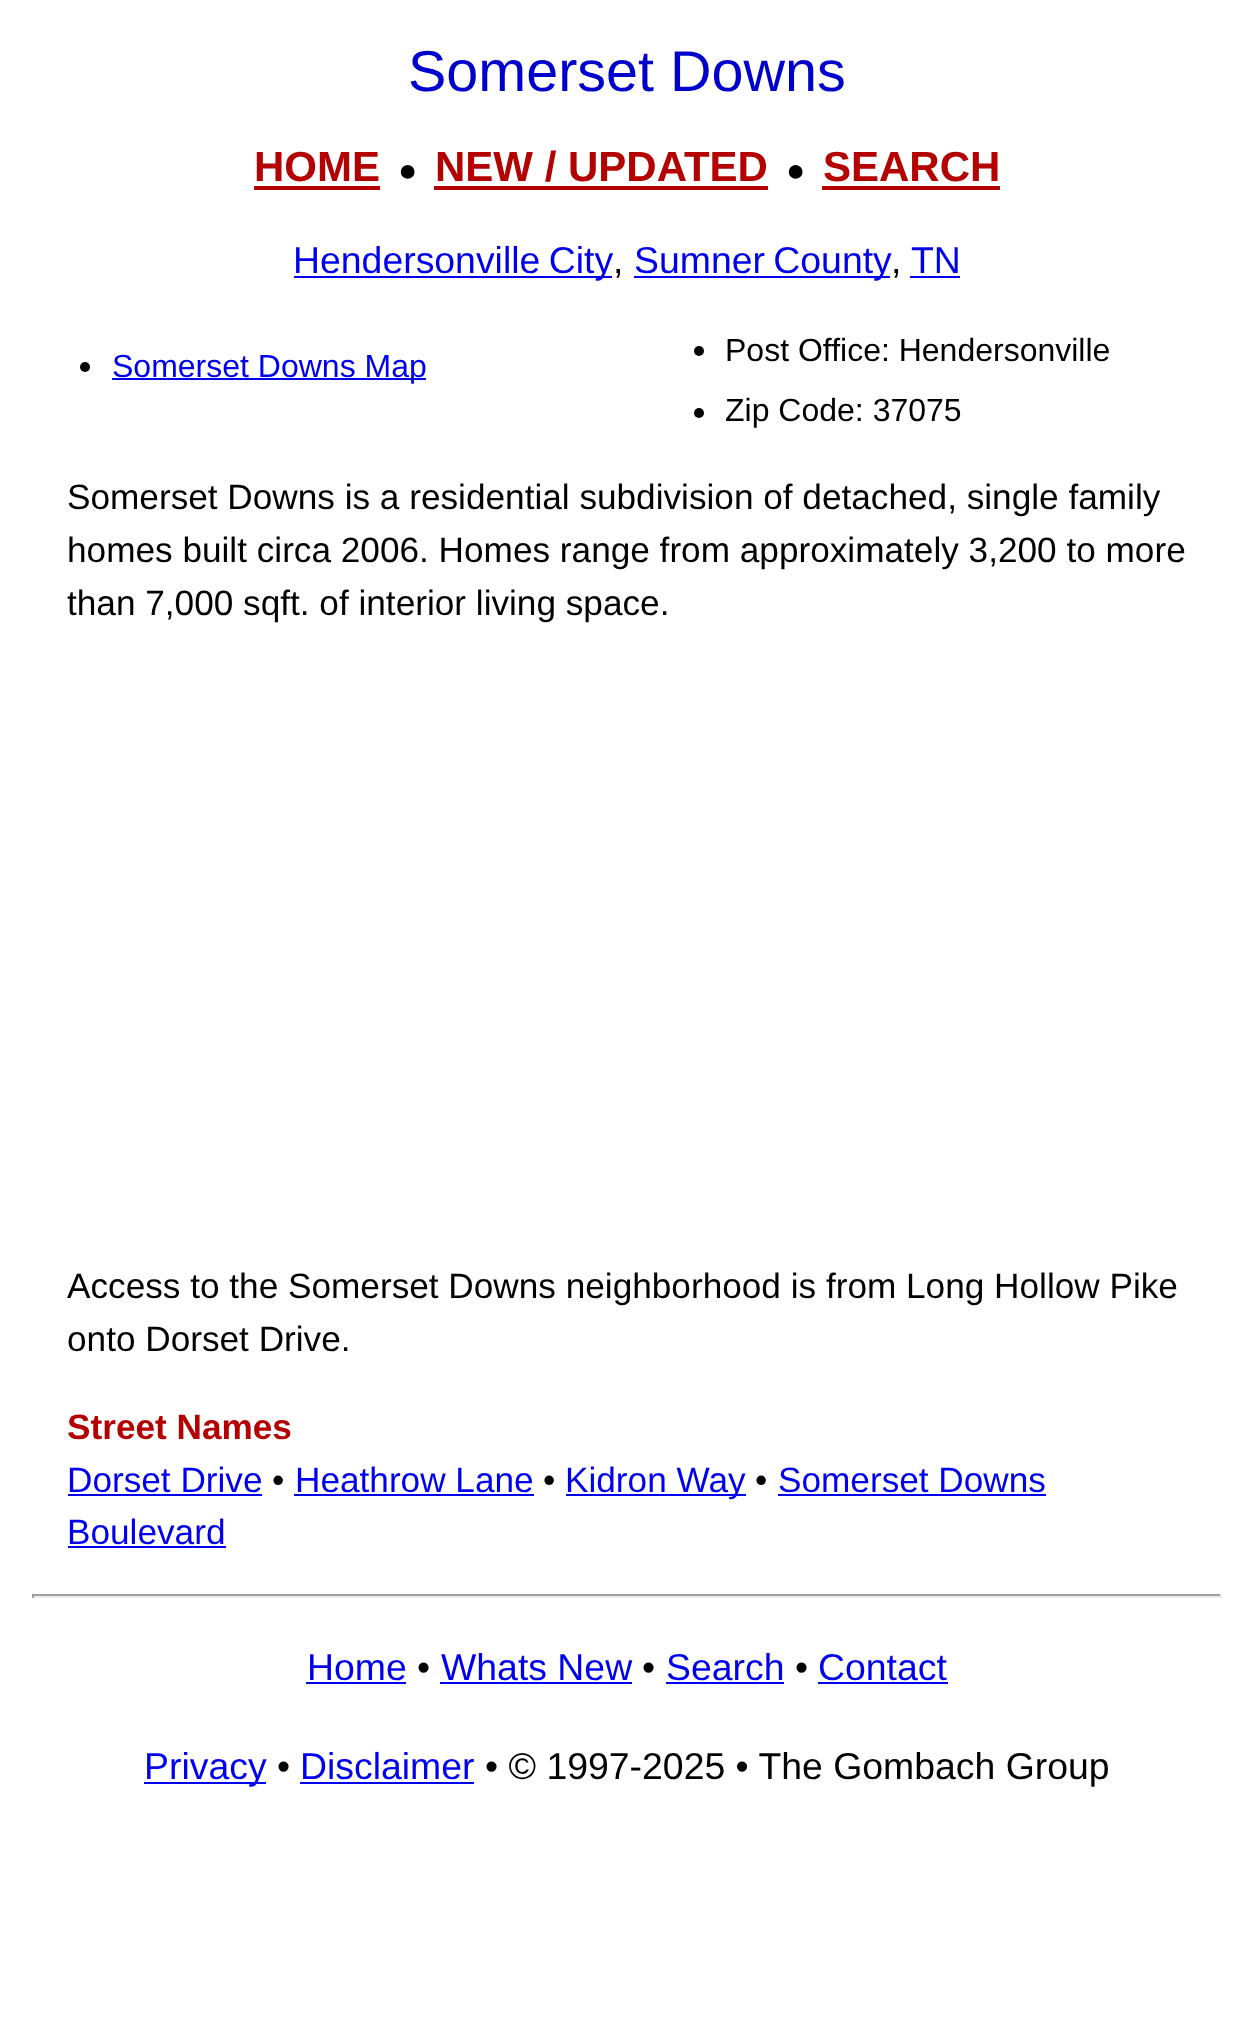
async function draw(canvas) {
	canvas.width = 1253;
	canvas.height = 2021;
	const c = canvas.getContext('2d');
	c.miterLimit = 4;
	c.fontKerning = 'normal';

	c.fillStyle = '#fff';
	c.fillRect(0, 0, 1253, 2021);
	c.font = '57.5px Liberation Sans';
	c.fillStyle = '#00c';
	c.fillText('Somerset Downs', 408, 91);
	c.font = 'bold 42px Liberation Sans';
	c.fillStyle = '#b40101';
	c.fillText('HOME', 254, 181);
	c.fillRect(254, 186, 126, 4);
	c.font = '32px Liberation Sans';
	c.fillStyle = '#000';
	c.fillText('●', 398, 181);
	c.font = 'bold 42px Liberation Sans';
	c.fillStyle = '#b40101';
	c.fillText('NEW / UPDATED', 435, 181);
	c.fillRect(434, 186, 334, 4);
	c.font = '32px Liberation Sans';
	c.fillStyle = '#000';
	c.fillText('●', 786, 181);
	c.font = 'bold 42px Liberation Sans';
	c.fillStyle = '#b40101';
	c.fillText('SEARCH', 823, 181);
	c.fillRect(822, 186, 178, 4);
	c.fillStyle = '#00e';
	c.fillRect(294, 276, 318, 2);
	c.wordSpacing = '-2px';
	c.font = '37.4px Liberation Sans';
	c.fillText('Hendersonville City', 293, 273);
	c.wordSpacing = '0px';
	c.fillStyle = '#000';
	c.fillText(',', 613, 273);
	c.fillStyle = '#00e';
	c.fillRect(634, 276, 256, 2);
	c.wordSpacing = '-2px';
	c.fillText('Sumner County', 634, 273);
	c.wordSpacing = '0px';
	c.fillStyle = '#000';
	c.fillText(',', 891, 273);
	c.fillStyle = '#00e';
	c.fillText('TN', 911, 273);
	c.fillRect(910, 276, 50, 2);
	c.fillStyle = '#000';
	c.beginPath();
	c.arc(699, 351, 5, 0, 2 * Math.PI);
	c.fill();
	c.font = '32px Liberation Sans';
	c.fillText('Post Office: Hendersonville', 725, 361);
	c.beginPath();
	c.arc(85, 367, 5, 0, 2 * Math.PI);
	c.fill();
	c.fillStyle = '#00e';
	c.fillRect(112, 378, 314, 2);
	c.fillText('Somerset Downs Map', 112, 377);
	c.fillStyle = '#000';
	c.beginPath();
	c.arc(699, 413, 5, 0, 2 * Math.PI);
	c.fill();
	c.fillText('Zip Code: 37075', 725, 421);
	c.font = '35.2px Liberation Sans';
	for (const [text, x, y] of [
		['Somerset Downs is a residential subdivision of detached, single family', 67, 509],
		['homes built circa 2006. Homes range from approximately 3,200 to more', 67, 562],
		['than 7,000 sqft. of interior living space.', 67, 615],
		['Access to the Somerset Downs neighborhood is from Long Hollow Pike', 67, 1298],
		['onto Dorset Drive.', 67, 1351],
	]) {
		c.fillText(text, x, y);
	}
	c.font = 'bold 35.2px Liberation Sans';
	c.fillStyle = '#b40101';
	c.fillText('Street Names', 67, 1439);
	c.font = '35.2px Liberation Sans';
	c.fillStyle = '#00e';
	c.fillText('Dorset Drive', 67, 1492);
	c.fillRect(68, 1494, 194, 2);
	c.fillStyle = '#000';
	c.fillText('•', 272, 1492);
	c.fillStyle = '#00e';
	c.fillText('Heathrow Lane', 295, 1492);
	c.fillRect(294, 1494, 240, 2);
	c.fillStyle = '#000';
	c.fillText('•', 543, 1492);
	c.fillStyle = '#00e';
	c.fillRect(566, 1494, 180, 2);
	c.fillText('Kidron Way', 565, 1492);
	c.fillStyle = '#000';
	c.fillText('•', 755, 1492);
	c.fillStyle = '#00e';
	c.fillText('Somerset Downs', 778, 1492);
	c.fillRect(778, 1494, 268, 2);
	c.fillText('Boulevard', 67, 1544);
	for (const [x, y, w, h, color] of [
		[68, 1546, 158, 2, '#00e'],
		[32, 1594, 1190, 2, '#9f9f9f'],
		[1220, 1594, 2, 4, '#eee'],
		[32, 1596, 1190, 2, '#eee'],
		[32, 1594, 2, 4, '#9f9f9f'],
	]) {
		c.fillStyle = color;
		c.fillRect(x, y, w, h);
	}
	c.font = '37.4px Liberation Sans';
	c.fillStyle = '#00e';
	c.fillText('Home', 307, 1680);
	c.fillRect(306, 1682, 100, 2);
	c.fillStyle = '#000';
	c.fillText('•', 417, 1680);
	c.fillStyle = '#00e';
	c.fillText('Whats New', 441, 1680);
	c.fillRect(440, 1682, 192, 2);
	c.fillStyle = '#000';
	c.fillText('•', 642, 1680);
	c.fillStyle = '#00e';
	c.fillText('Search', 666, 1680);
	c.fillRect(666, 1682, 118, 2);
	c.fillStyle = '#000';
	c.fillText('•', 795, 1680);
	c.fillStyle = '#00e';
	c.fillText('Contact', 818, 1680);
	c.fillRect(818, 1682, 130, 2);
	c.fillRect(144, 1782, 122, 2);
	c.fillText('Privacy', 144, 1779);
	c.fillStyle = '#000';
	c.fillText('•', 277, 1779);
	c.fillStyle = '#00e';
	c.fillText('Disclaimer', 300, 1779);
	c.fillRect(300, 1782, 174, 2);
	c.fillStyle = '#000';
	c.fillText('• © 1997-2025 • The Gombach Group', 485, 1779);
}

draw(document.querySelector('canvas'));
